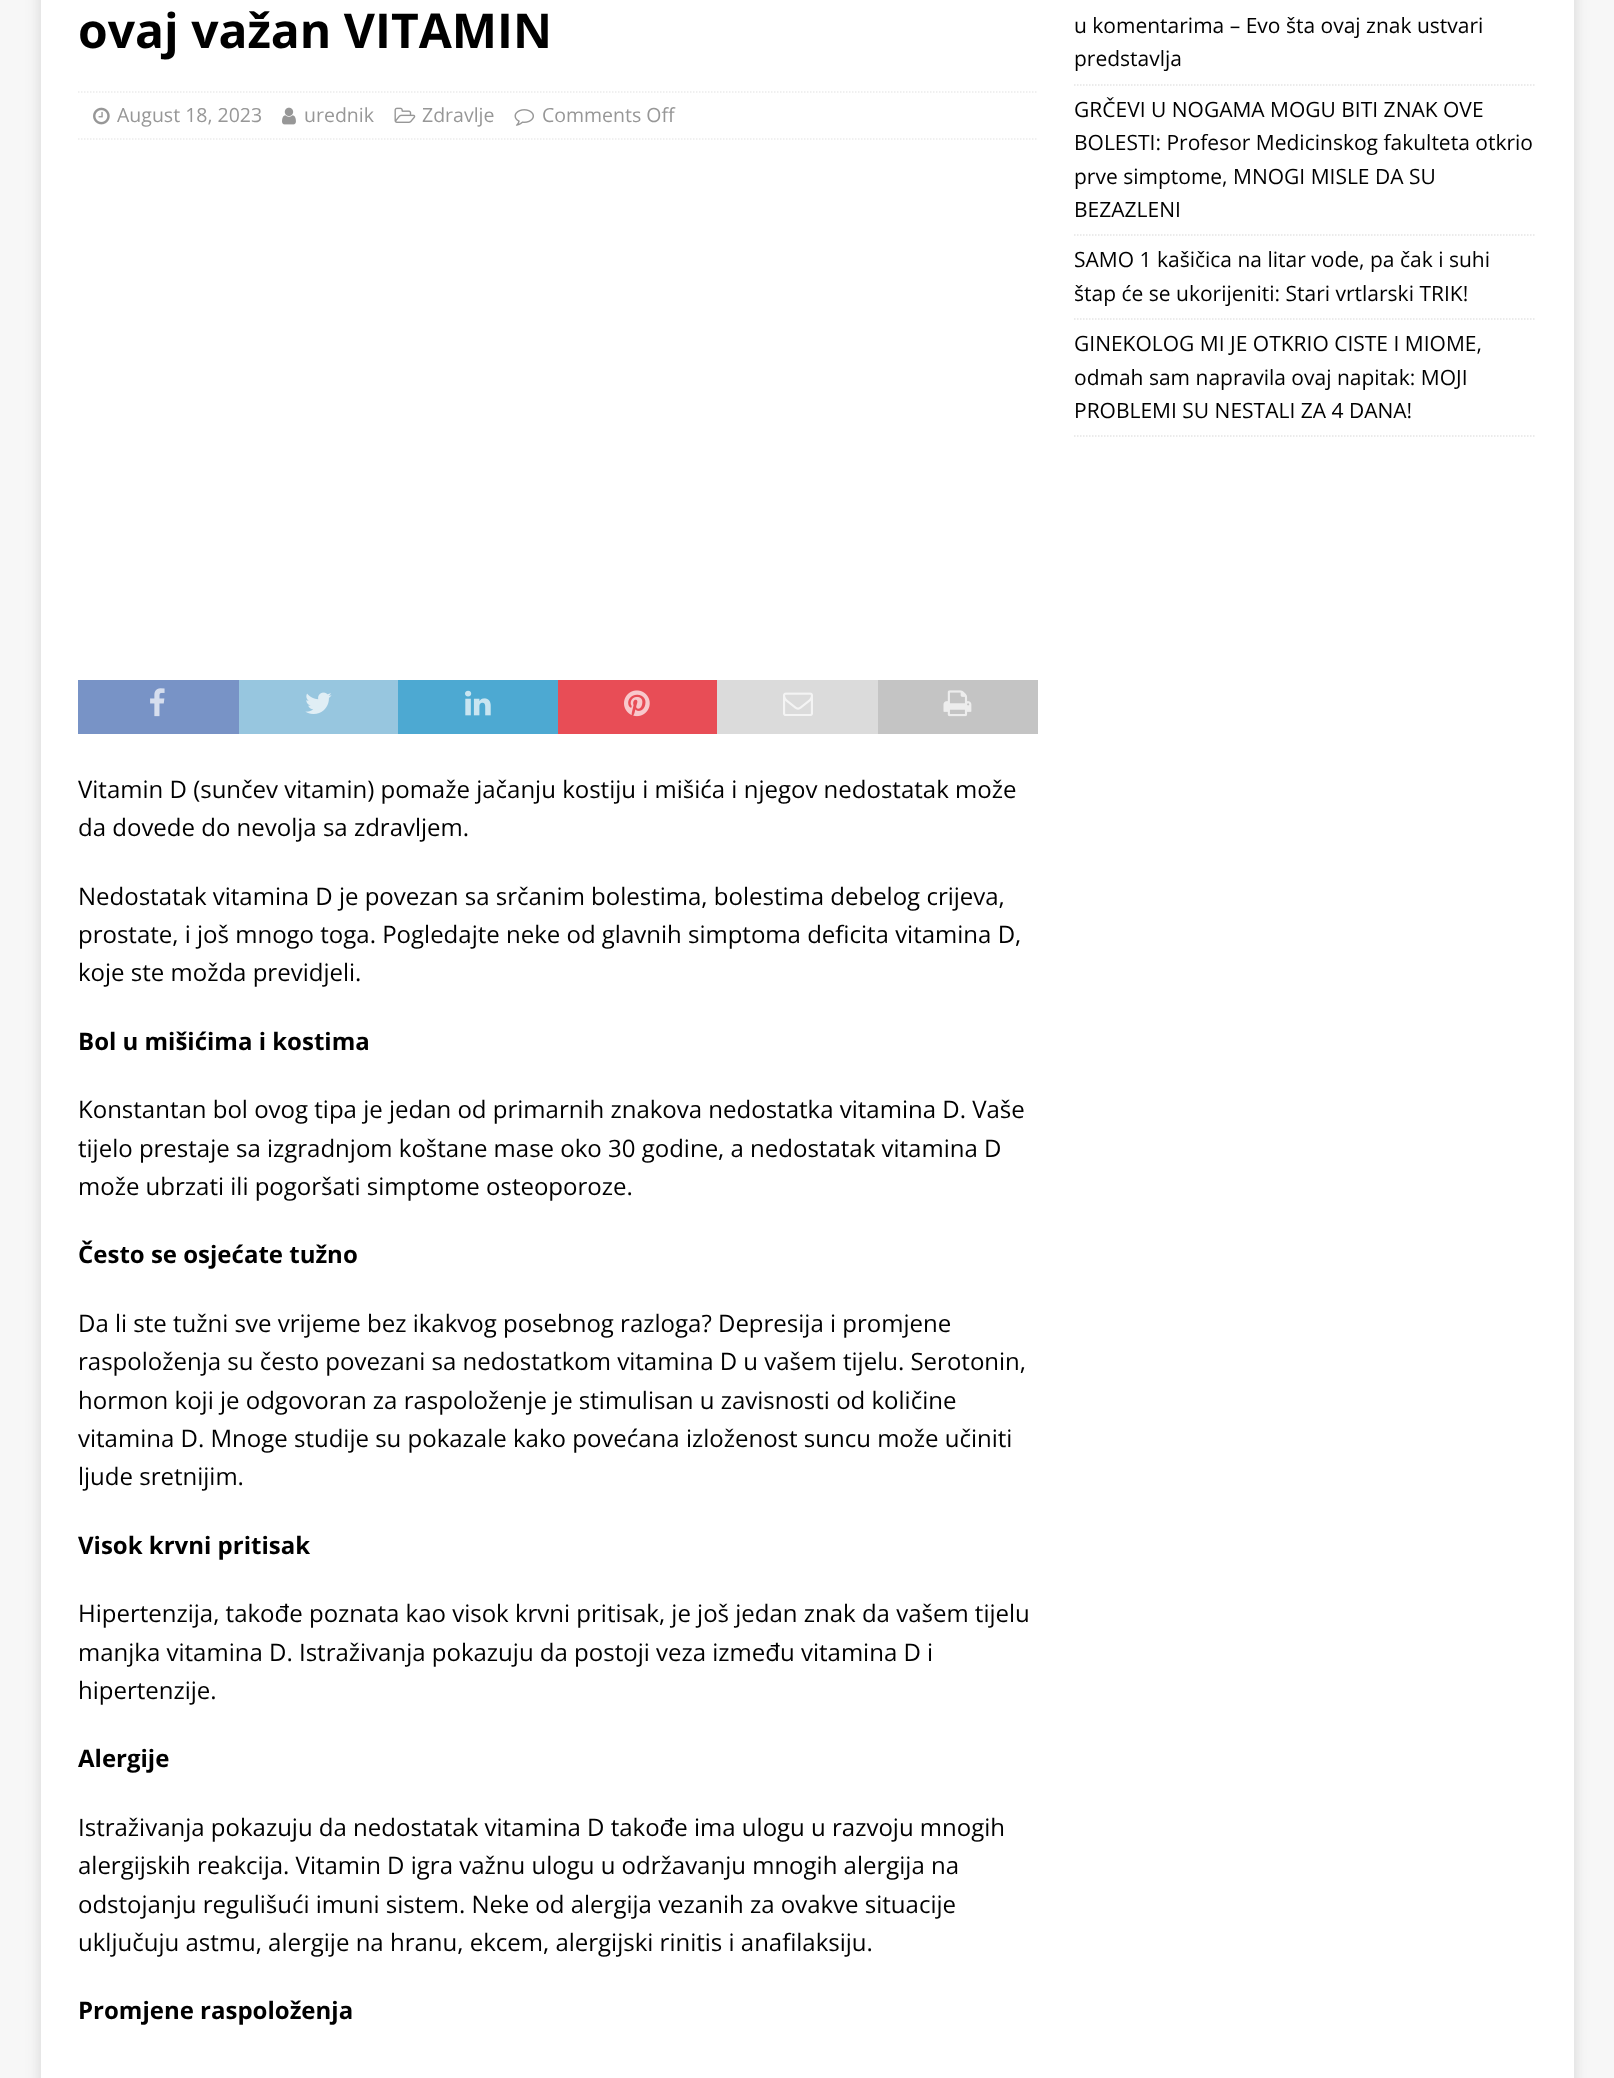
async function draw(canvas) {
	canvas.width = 1614;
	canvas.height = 2078;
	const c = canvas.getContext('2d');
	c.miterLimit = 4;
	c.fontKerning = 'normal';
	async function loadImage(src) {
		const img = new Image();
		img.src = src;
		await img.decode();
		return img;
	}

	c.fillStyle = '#f7f7f7';
	c.fillRect(0, 0, 1614, 2078);
	c.fillStyle = '#3232322b';
	c.filter = 'blur(7.5px)';
	c.beginPath();
	c.rect(41, -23, 1533, 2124);
	c.fill();
	c.filter = 'none';
	c.fillStyle = '#fff';
	c.fillRect(41, 0, 1533, 2078);
	c.font = 'bold 48px Open Sans';
	c.fillStyle = '#000';
	c.fillText('ovaj važan VITAMIN', 78, 48);
	c.beginPath();
	c.moveTo(78, 92);
	c.lineTo(1038, 92);
	c.strokeStyle = '#ebebeb';
	c.lineWidth = 1.5;
	c.setLineDash([1.5, 1.5]);
	c.stroke();
	c.beginPath();
	c.moveTo(78, 139);
	c.lineTo(1038, 139);
	c.stroke();
	c.drawImage(await loadImage('img1.png'), 93, 107, 17, 18);
	c.font = '19.5px Open Sans';
	c.fillStyle = '#979797';
	c.fillText('August 18, 2023', 117, 122);
	c.drawImage(await loadImage('img2.png'), 282, 107, 14, 18);
	c.fillText('urednik', 304, 122);
	c.drawImage(await loadImage('img3.png'), 394, 107, 22, 16);
	c.fillText('Zdravlje', 422, 122);
	c.drawImage(await loadImage('img4.png'), 514, 109, 20, 17);
	c.fillText('Comments Off', 542, 122);
	c.fillStyle = '#7893c6';
	c.fillRect(78, 680, 161, 54);
	c.drawImage(await loadImage('img5.png'), 150, 688, 15, 29);
	c.fillStyle = '#97c6df';
	c.fillRect(239, 680, 159, 54);
	c.drawImage(await loadImage('img6.png'), 305, 692, 27, 22);
	c.fillStyle = '#4da9d2';
	c.fillRect(398, 680, 160, 54);
	c.drawImage(await loadImage('img7.png'), 465, 690, 26, 26);
	c.fillStyle = '#e84d56';
	c.fillRect(558, 680, 159, 54);
	c.drawImage(await loadImage('img8.png'), 624, 690, 26, 27);
	c.fillStyle = '#dbdbdb';
	c.fillRect(717, 680, 161, 54);
	c.drawImage(await loadImage('img9.png'), 783, 692, 30, 24);
	c.fillStyle = '#c4c4c4';
	c.fillRect(878, 680, 160, 54);
	c.drawImage(await loadImage('img10.png'), 943, 690, 29, 27);
	c.font = '24px Open Sans';
	c.fillStyle = '#000';
	for (const [text, x, y] of [
		['Vitamin D (sunčev vitamin) pomaže jačanju kostiju i mišića i njegov nedostatak može', 78, 798],
		['da dovede do nevolja sa zdravljem.', 78, 836],
		['Nedostatak vitamina D je povezan sa srčanim bolestima, bolestima debelog crijeva,', 78, 905],
		['prostate, i još mnogo toga. Pogledajte neke od glavnih simptoma deficita vitamina D,', 78, 943],
		['koje ste možda previdjeli.', 78, 981],
	]) {
		c.fillText(text, x, y);
	}
	c.font = 'bold 24px Open Sans';
	c.fillText('Bol u mišićima i kostima', 78, 1050);
	c.font = '24px Open Sans';
	for (const [text, x, y] of [
		['Konstantan bol ovog tipa je jedan od primarnih znakova nedostatka vitamina D. Vaše', 78, 1118],
		['tijelo prestaje sa izgradnjom koštane mase oko 30 godine, a nedostatak vitamina D', 78, 1157],
		['može ubrzati ili pogoršati simptome osteoporoze.', 78, 1195],
	]) {
		c.fillText(text, x, y);
	}
	c.font = 'bold 24px Open Sans';
	c.fillText('Često se osjećate tužno', 78, 1263);
	c.font = '24px Open Sans';
	for (const [text, x, y] of [
		['Da li ste tužni sve vrijeme bez ikakvog posebnog razloga? Depresija i promjene', 78, 1332],
		['raspoloženja su često povezani sa nedostatkom vitamina D u vašem tijelu. Serotonin,', 78, 1370],
		['hormon koji je odgovoran za raspoloženje je stimulisan u zavisnosti od količine', 78, 1409],
		['vitamina D. Mnoge studije su pokazale kako povećana izloženost suncu može učiniti', 78, 1447],
		['ljude sretnijim.', 78, 1485],
	]) {
		c.fillText(text, x, y);
	}
	c.font = 'bold 24px Open Sans';
	c.fillText('Visok krvni pritisak', 78, 1554);
	c.font = '24px Open Sans';
	for (const [text, x, y] of [
		['Hipertenzija, takođe poznata kao visok krvni pritisak, je još jedan znak da vašem tijelu', 78, 1622],
		['manjka vitamina D. Istraživanja pokazuju da postoji veza između vitamina D i', 78, 1661],
		['hipertenzije.', 78, 1699],
	]) {
		c.fillText(text, x, y);
	}
	c.font = 'bold 24px Open Sans';
	c.fillText('Alergije', 78, 1767);
	c.font = '24px Open Sans';
	for (const [text, x, y] of [
		['Istraživanja pokazuju da nedostatak vitamina D takođe ima ulogu u razvoju mnogih', 78, 1836],
		['alergijskih reakcija. Vitamin D igra važnu ulogu u održavanju mnogih alergija na', 78, 1874],
		['odstojanju regulišući imuni sistem. Neke od alergija vezanih za ovakve situacije', 78, 1913],
		['uključuju astmu, alergije na hranu, ekcem, alergijski rinitis i anafilaksiju.', 78, 1951],
	]) {
		c.fillText(text, x, y);
	}
	c.font = 'bold 24px Open Sans';
	c.fillText('Promjene raspoloženja', 78, 2019);
	c.beginPath();
	c.moveTo(1074, 85);
	c.lineTo(1536, 85);
	c.strokeStyle = '#e5e5e5';
	c.stroke();
	c.font = '21px Open Sans';
	c.fillText('u komentarima – Evo šta ovaj znak ustvari', 1074, 33);
	c.fillText('predstavlja', 1074, 66);
	c.beginPath();
	c.moveTo(1074, 235);
	c.lineTo(1536, 235);
	c.stroke();
	for (const [text, x, y] of [
		['GRČEVI U NOGAMA MOGU BITI ZNAK OVE', 1074, 117],
		['BOLESTI: Profesor Medicinskog fakulteta otkrio', 1074, 150],
		['prve simptome, MNOGI MISLE DA SU', 1074, 184],
		['BEZAZLENI', 1074, 217],
	]) {
		c.fillText(text, x, y);
	}
	c.beginPath();
	c.moveTo(1074, 319);
	c.lineTo(1536, 319);
	c.stroke();
	c.fillText('SAMO 1 kašičica na litar vode, pa čak i suhi', 1074, 267);
	c.fillText('štap će se ukorijeniti: Stari vrtlarski TRIK!', 1074, 301);
	c.beginPath();
	c.moveTo(1074, 436);
	c.lineTo(1536, 436);
	c.stroke();
	for (const [text, x, y] of [
		['GINEKOLOG MI JE OTKRIO CISTE I MIOME,', 1074, 351],
		['odmah sam napravila ovaj napitak: MOJI', 1074, 385],
		['PROBLEMI SU NESTALI ZA 4 DANA!', 1074, 418],
	]) {
		c.fillText(text, x, y);
	}
}

draw(document.querySelector('canvas'));
